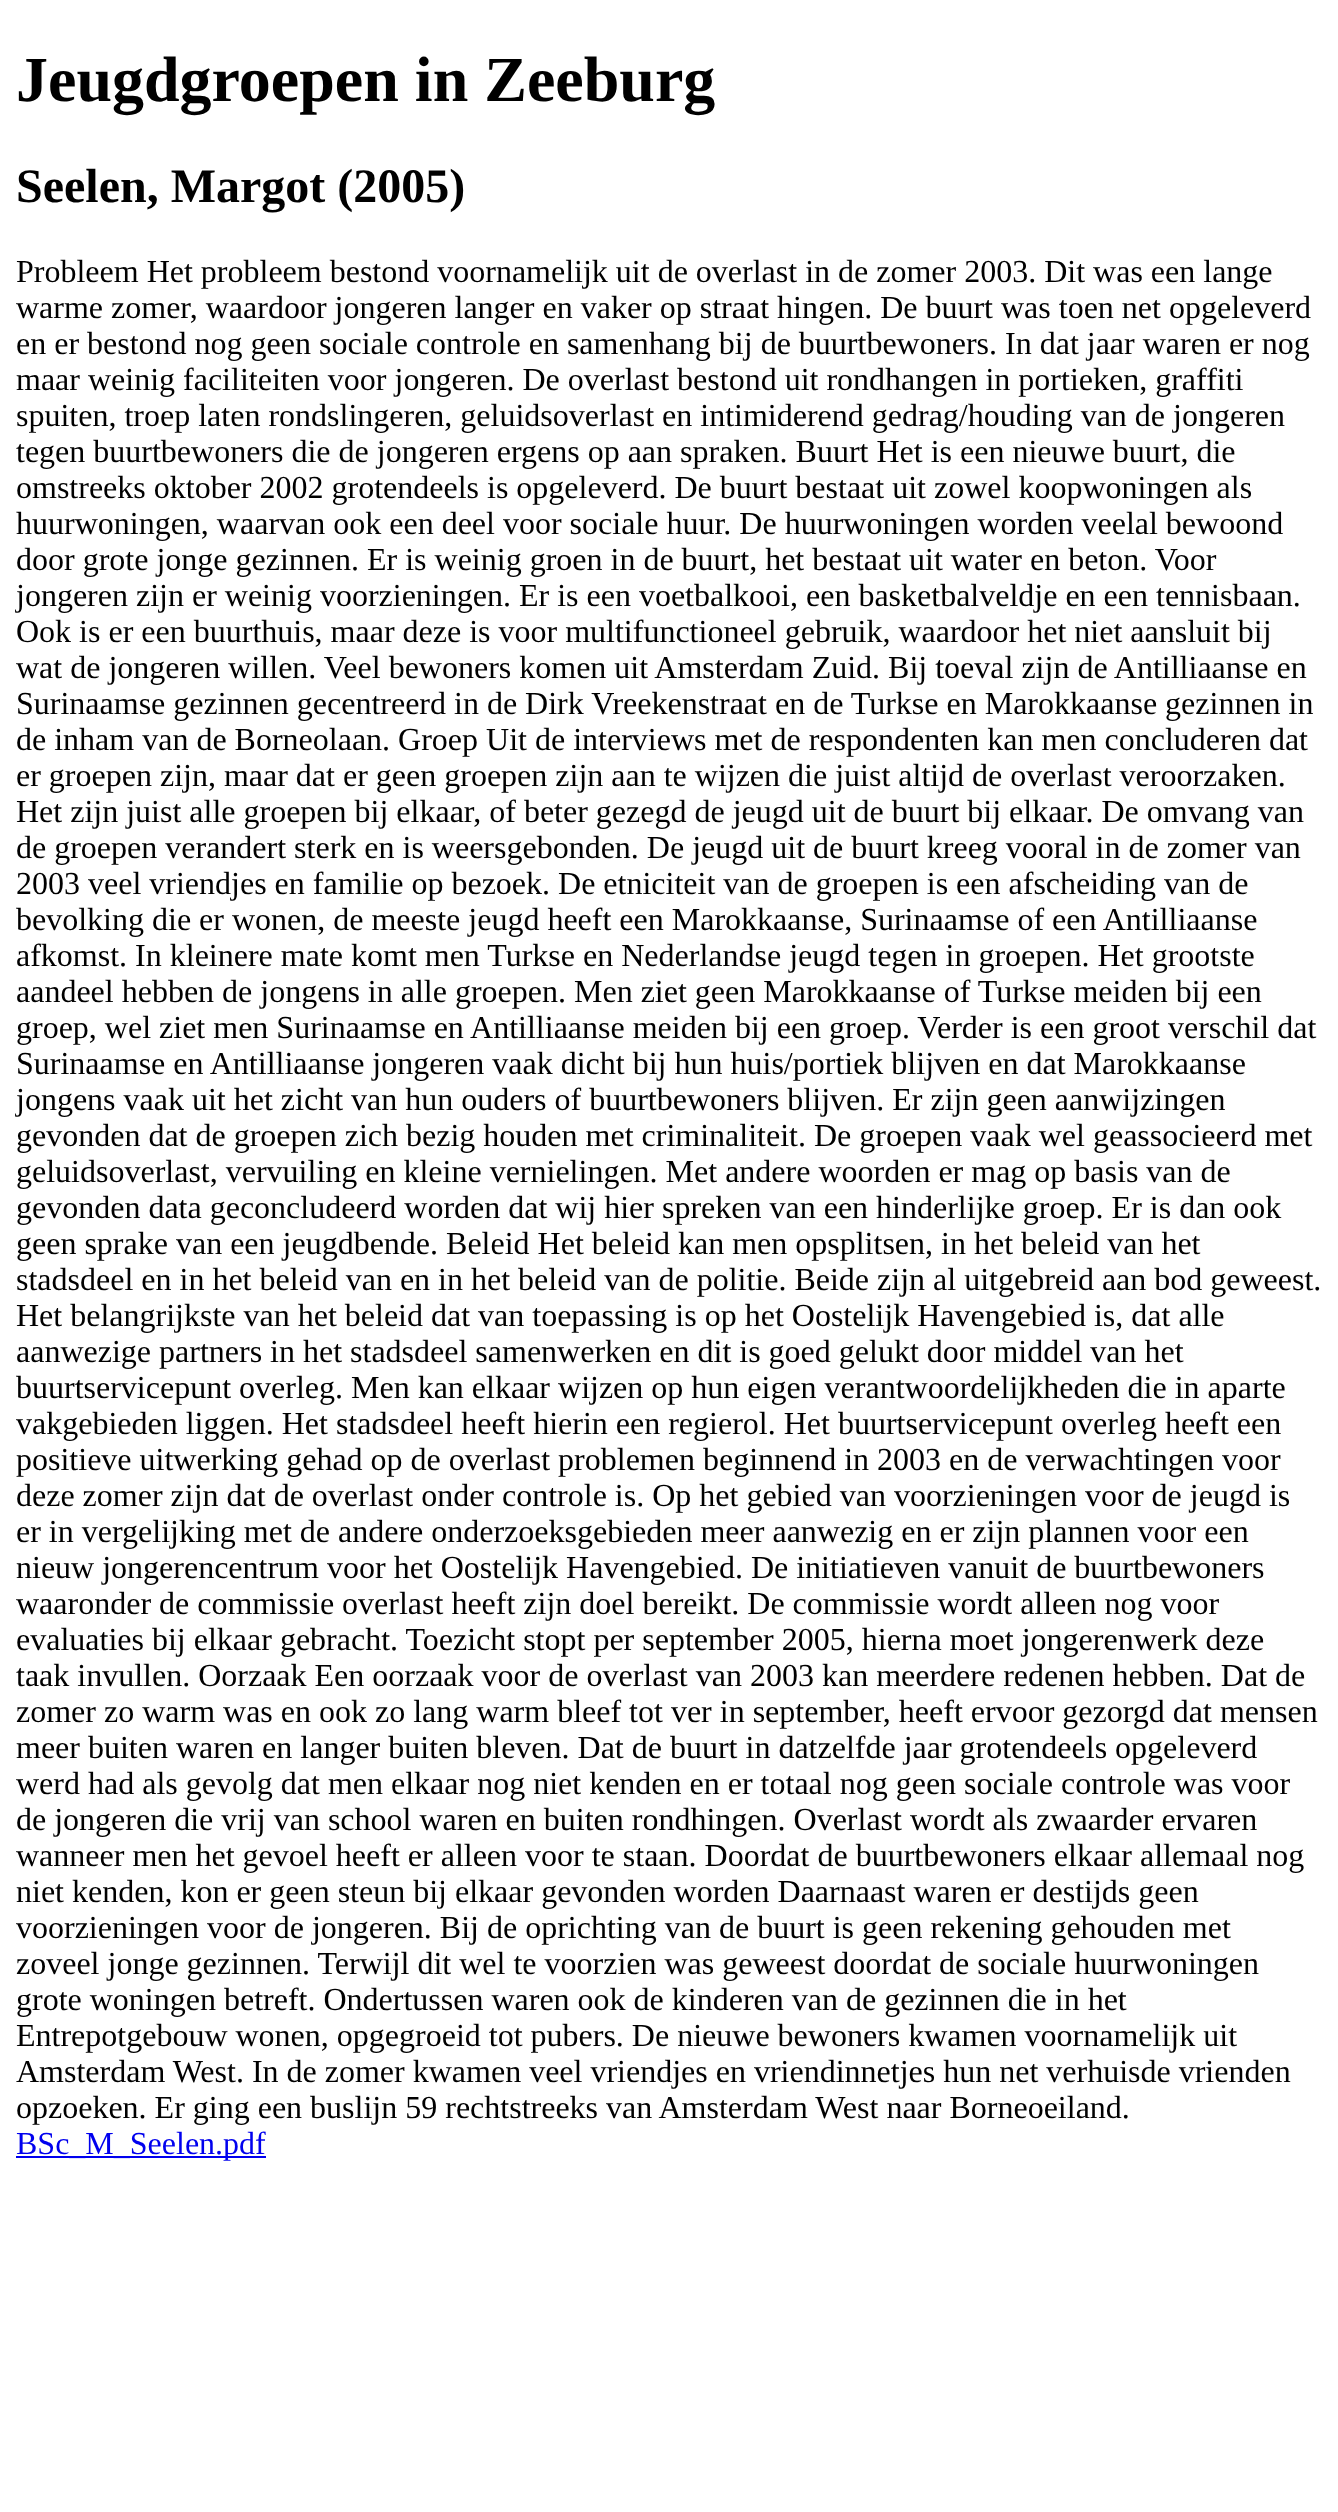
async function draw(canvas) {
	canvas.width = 1338;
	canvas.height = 2512;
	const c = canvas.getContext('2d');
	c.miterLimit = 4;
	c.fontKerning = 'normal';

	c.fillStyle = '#fff';
	c.fillRect(0, 0, 1338, 2512);
	c.font = 'bold 64px Liberation Serif';
	c.fillStyle = '#000';
	c.fillText('Jeugdgroepen in Zeeburg', 16, 101);
	c.font = 'bold 48px Liberation Serif';
	c.fillText('Seelen, Margot (2005)', 16, 202);
	c.font = '32px Liberation Serif';
	for (const [text, x, y] of [
		['Probleem Het probleem bestond voornamelijk uit de overlast in de zomer 2003. Dit was een lange', 16, 282],
		['warme zomer, waardoor jongeren langer en vaker op straat hingen. De buurt was toen net opgeleverd', 16, 318],
		['en er bestond nog geen sociale controle en samenhang bij de buurtbewoners. In dat jaar waren er nog', 16, 354],
		['maar weinig faciliteiten voor jongeren. De overlast bestond uit rondhangen in portieken, graffiti', 16, 390],
		['spuiten, troep laten rondslingeren, geluidsoverlast en intimiderend gedrag/houding van de jongeren', 16, 426],
		['tegen buurtbewoners die de jongeren ergens op aan spraken. Buurt Het is een nieuwe buurt, die', 16, 462],
		['omstreeks oktober 2002 grotendeels is opgeleverd. De buurt bestaat uit zowel koopwoningen als', 16, 498],
		['huurwoningen, waarvan ook een deel voor sociale huur. De huurwoningen worden veelal bewoond', 16, 534],
		['door grote jonge gezinnen. Er is weinig groen in de buurt, het bestaat uit water en beton. Voor', 16, 570],
		['jongeren zijn er weinig voorzieningen. Er is een voetbalkooi, een basketbalveldje en een tennisbaan.', 16, 606],
		['Ook is er een buurthuis, maar deze is voor multifunctioneel gebruik, waardoor het niet aansluit bij', 16, 642],
		['wat de jongeren willen. Veel bewoners komen uit Amsterdam Zuid. Bij toeval zijn de Antilliaanse en', 16, 678],
		['Surinaamse gezinnen gecentreerd in de Dirk Vreekenstraat en de Turkse en Marokkaanse gezinnen in', 16, 714],
		['de inham van de Borneolaan. Groep Uit de interviews met de respondenten kan men concluderen dat', 16, 750],
		['er groepen zijn, maar dat er geen groepen zijn aan te wijzen die juist altijd de overlast veroorzaken.', 16, 786],
		['Het zijn juist alle groepen bij elkaar, of beter gezegd de jeugd uit de buurt bij elkaar. De omvang van', 16, 822],
		['de groepen verandert sterk en is weersgebonden. De jeugd uit de buurt kreeg vooral in de zomer van', 16, 858],
		['2003 veel vriendjes en familie op bezoek. De etniciteit van de groepen is een afscheiding van de', 16, 894],
		['bevolking die er wonen, de meeste jeugd heeft een Marokkaanse, Surinaamse of een Antilliaanse', 16, 930],
		['afkomst. In kleinere mate komt men Turkse en Nederlandse jeugd tegen in groepen. Het grootste', 16, 966],
		['aandeel hebben de jongens in alle groepen. Men ziet geen Marokkaanse of Turkse meiden bij een', 16, 1002],
		['groep, wel ziet men Surinaamse en Antilliaanse meiden bij een groep. Verder is een groot verschil dat', 16, 1038],
		['Surinaamse en Antilliaanse jongeren vaak dicht bij hun huis/portiek blijven en dat Marokkaanse', 16, 1074],
		['jongens vaak uit het zicht van hun ouders of buurtbewoners blijven. Er zijn geen aanwijzingen', 16, 1110],
		['gevonden dat de groepen zich bezig houden met criminaliteit. De groepen vaak wel geassocieerd met', 16, 1146],
		['geluidsoverlast, vervuiling en kleine vernielingen. Met andere woorden er mag op basis van de', 16, 1182],
		['gevonden data geconcludeerd worden dat wij hier spreken van een hinderlijke groep. Er is dan ook', 16, 1218],
		['geen sprake van een jeugdbende. Beleid Het beleid kan men opsplitsen, in het beleid van het', 16, 1254],
		['stadsdeel en in het beleid van en in het beleid van de politie. Beide zijn al uitgebreid aan bod geweest.', 16, 1290],
		['Het belangrijkste van het beleid dat van toepassing is op het Oostelijk Havengebied is, dat alle', 16, 1326],
		['aanwezige partners in het stadsdeel samenwerken en dit is goed gelukt door middel van het', 16, 1362],
		['buurtservicepunt overleg. Men kan elkaar wijzen op hun eigen verantwoordelijkheden die in aparte', 16, 1398],
		['vakgebieden liggen. Het stadsdeel heeft hierin een regierol. Het buurtservicepunt overleg heeft een', 16, 1434],
		['positieve uitwerking gehad op de overlast problemen beginnend in 2003 en de verwachtingen voor', 16, 1470],
		['deze zomer zijn dat de overlast onder controle is. Op het gebied van voorzieningen voor de jeugd is', 16, 1506],
		['er in vergelijking met de andere onderzoeksgebieden meer aanwezig en er zijn plannen voor een', 16, 1542],
		['nieuw jongerencentrum voor het Oostelijk Havengebied. De initiatieven vanuit de buurtbewoners', 16, 1578],
		['waaronder de commissie overlast heeft zijn doel bereikt. De commissie wordt alleen nog voor', 16, 1614],
		['evaluaties bij elkaar gebracht. Toezicht stopt per september 2005, hierna moet jongerenwerk deze', 16, 1650],
		['taak invullen. Oorzaak Een oorzaak voor de overlast van 2003 kan meerdere redenen hebben. Dat de', 16, 1686],
		['zomer zo warm was en ook zo lang warm bleef tot ver in september, heeft ervoor gezorgd dat mensen', 16, 1722],
		['meer buiten waren en langer buiten bleven. Dat de buurt in datzelfde jaar grotendeels opgeleverd', 16, 1758],
		['werd had als gevolg dat men elkaar nog niet kenden en er totaal nog geen sociale controle was voor', 16, 1794],
		['de jongeren die vrij van school waren en buiten rondhingen. Overlast wordt als zwaarder ervaren', 16, 1830],
		['wanneer men het gevoel heeft er alleen voor te staan. Doordat de buurtbewoners elkaar allemaal nog', 16, 1866],
		['niet kenden, kon er geen steun bij elkaar gevonden worden Daarnaast waren er destijds geen', 16, 1902],
		['voorzieningen voor de jongeren. Bij de oprichting van de buurt is geen rekening gehouden met', 16, 1938],
		['zoveel jonge gezinnen. Terwijl dit wel te voorzien was geweest doordat de sociale huurwoningen', 16, 1974],
		['grote woningen betreft. Ondertussen waren ook de kinderen van de gezinnen die in het', 16, 2010],
		['Entrepotgebouw wonen, opgegroeid tot pubers. De nieuwe bewoners kwamen voornamelijk uit', 16, 2046],
		['Amsterdam West. In de zomer kwamen veel vriendjes en vriendinnetjes hun net verhuisde vrienden', 16, 2082],
		['opzoeken. Er ging een buslijn 59 rechtstreeks van Amsterdam West naar Borneoeiland.', 16, 2118],
	]) {
		c.fillText(text, x, y);
	}
	c.fillStyle = '#00e';
	c.fillRect(16, 2156, 250, 2);
	c.fillText('BSc_M_Seelen.pdf', 16, 2154);
}

draw(document.querySelector('canvas'));
